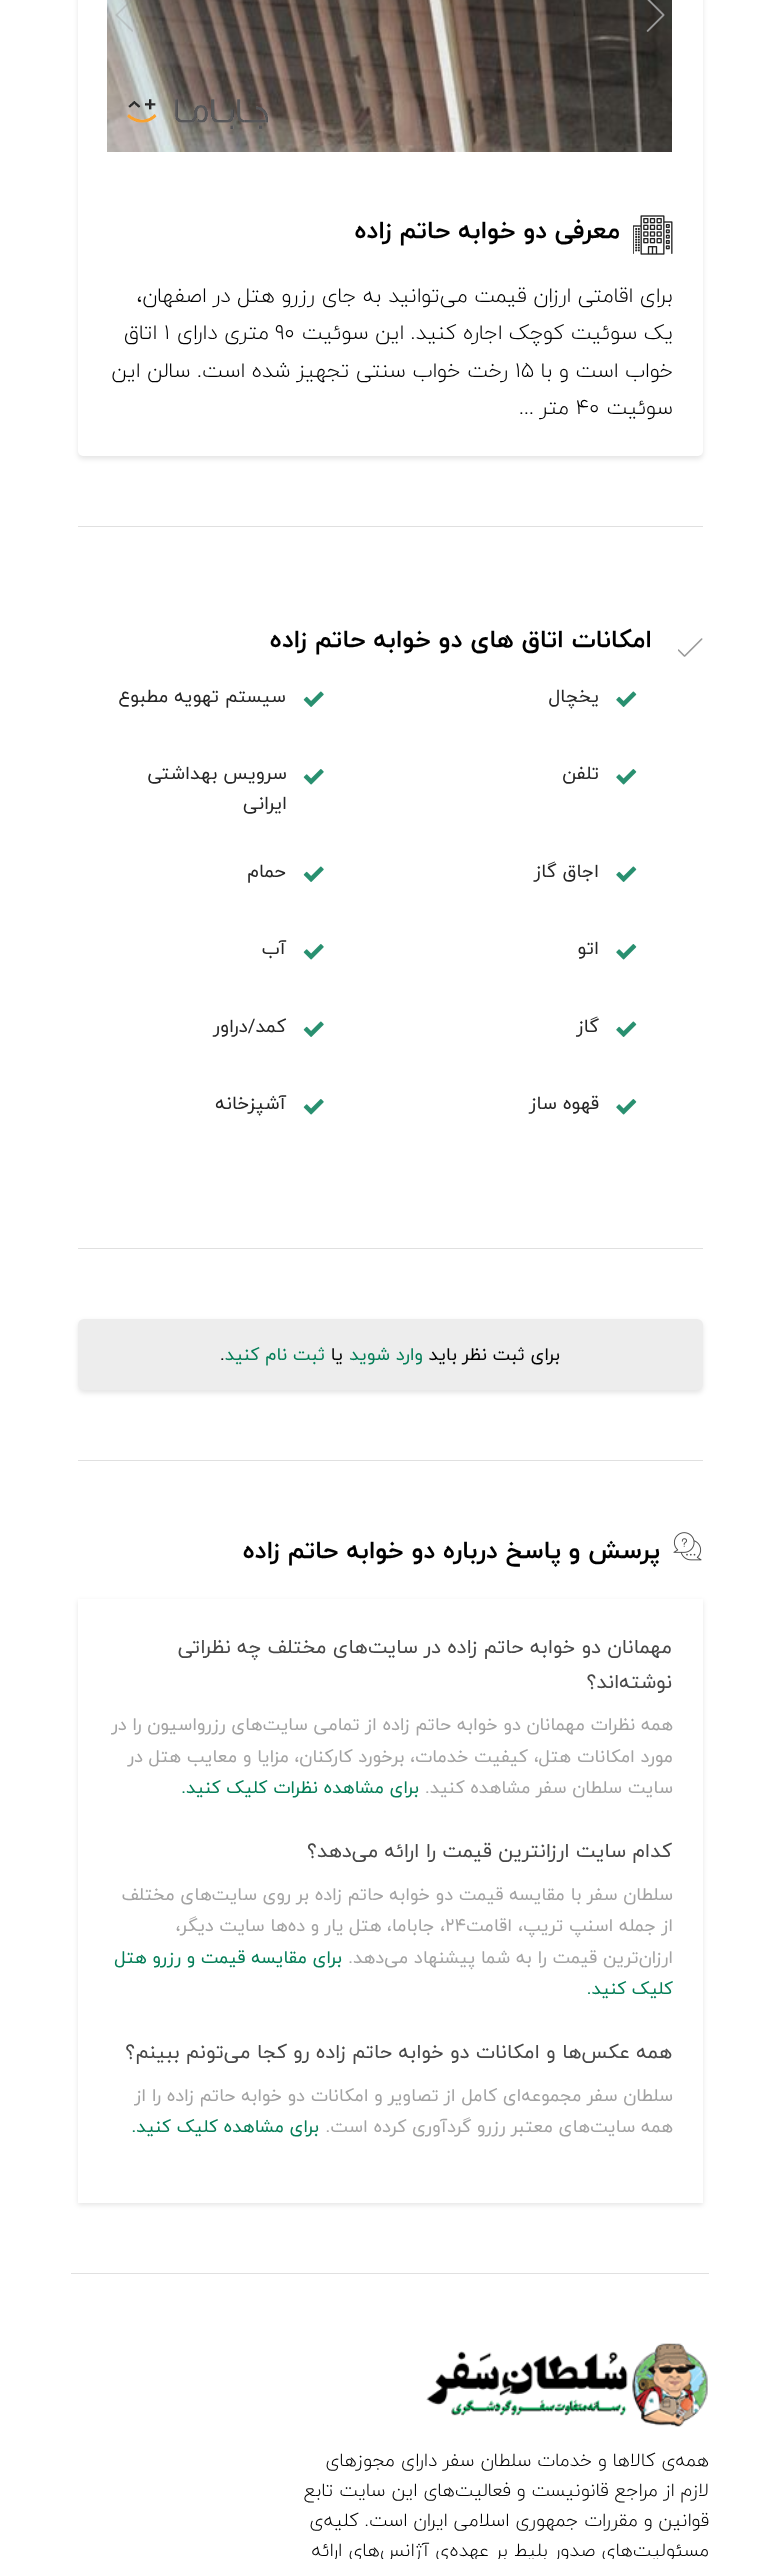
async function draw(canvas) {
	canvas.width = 780;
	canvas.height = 2559;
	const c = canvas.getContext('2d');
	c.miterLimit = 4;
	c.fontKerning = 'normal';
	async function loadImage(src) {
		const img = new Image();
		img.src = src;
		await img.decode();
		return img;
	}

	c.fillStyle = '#fff';
	c.fillRect(0, 0, 780, 2559);
	c.fillStyle = '#0000001a';
	c.filter = 'blur(2.5px)';
	c.beginPath();
	c.roundRect(78, -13, 625, 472, 5);
	c.fill();
	c.filter = 'none';
	c.fillStyle = '#fff';
	c.beginPath();
	c.roundRect(78, -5, 625, 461, 5);
	c.fill();
	c.drawImage(await loadImage('img1.png'), 107, 0, 565, 152);
	c.drawImage(await loadImage('img2.png'), 127, 99, 141, 30);
	c.drawImage(await loadImage('img3.png'), 646, 0, 19, 32);
	c.drawImage(await loadImage('img4.png'), 115, 0, 18, 32);
	c.drawImage(await loadImage('img5.png'), 633, 215, 40, 40);
	c.direction = 'rtl';
	c.font = 'bold 25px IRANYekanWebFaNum';
	c.fillStyle = '#000';
	c.fillText('معرفی دو خوابه حاتم زاده', 620, 238);
	c.font = '300 21px IRANYekanWebFaNum';
	c.fillText('برای اقامتی ارزان قیمت می‌توانید به جای رزرو هتل در اصفهان،', 673, 302);
	c.fillText('یک سوئیت کوچک اجاره کنید. این سوئیت', 673, 339);
	c.direction = 'ltr';
	c.fillText('90', 275, 339);
	c.direction = 'rtl';
	c.fillText('متری دارای', 269, 339);
	c.direction = 'ltr';
	c.fillText('1', 164, 339);
	c.direction = 'rtl';
	c.fillText('اتاق', 157, 339);
	c.fillText('خواب است و با', 673, 377);
	c.direction = 'ltr';
	c.fillText('15', 515, 377);
	c.direction = 'rtl';
	c.fillText('رخت خواب سنتی تجهیز شده است. سالن این', 508, 377);
	c.fillText('سوئیت', 673, 414);
	c.direction = 'ltr';
	c.fillText('40', 576, 414);
	c.direction = 'rtl';
	c.fillText('متر', 569, 414);
	c.direction = 'ltr';
	c.fillText('...', 519, 414);
	c.fillStyle = '#e0e0e0';
	c.fillRect(78, 526, 625, 1);
	c.drawImage(await loadImage('img6.png'), 678, 638, 25, 19);
	c.direction = 'rtl';
	c.font = 'bold 25px IRANYekanWebFaNum';
	c.fillStyle = '#000';
	c.fillText('امکانات اتاق های دو خوابه حاتم زاده', 652, 647);
	c.drawImage(await loadImage('img7.png'), 616, 691, 21, 16);
	c.font = '18.75px IRANYekanWebFaNum';
	c.fillStyle = '#262626';
	c.fillText('یخچال', 599, 702);
	c.drawImage(await loadImage('img8.png'), 303, 691, 21, 16);
	c.fillText('سیستم تهویه مطبوع', 286, 702);
	c.drawImage(await loadImage('img9.png'), 616, 769, 21, 16);
	c.fillText('تلفن', 599, 779);
	c.drawImage(await loadImage('img10.png'), 303, 769, 21, 16);
	c.fillText('سرویس بهداشتی', 287, 779);
	c.fillText('ایرانی', 287, 809);
	c.drawImage(await loadImage('img7.png'), 616, 866, 21, 16);
	c.fillText('اجاق گاز', 599, 877);
	c.drawImage(await loadImage('img8.png'), 303, 866, 21, 16);
	c.fillText('حمام', 286, 877);
	c.drawImage(await loadImage('img9.png'), 616, 944, 21, 16);
	c.fillText('اتو', 599, 954);
	c.drawImage(await loadImage('img10.png'), 303, 944, 21, 16);
	c.fillText('آب', 286, 954);
	c.drawImage(await loadImage('img7.png'), 616, 1021, 21, 16);
	c.fillText('گاز', 599, 1032);
	c.drawImage(await loadImage('img8.png'), 303, 1021, 21, 16);
	c.fillText('کمد/دراور', 286, 1032);
	c.drawImage(await loadImage('img9.png'), 616, 1099, 21, 16);
	c.fillText('قهوه ساز', 599, 1109);
	c.drawImage(await loadImage('img10.png'), 303, 1099, 21, 16);
	c.fillText('آشپزخانه', 286, 1109);
	c.fillStyle = '#e0e0e0';
	c.fillRect(78, 1248, 625, 1);
	c.fillStyle = '#0000001a';
	c.filter = 'blur(2.5px)';
	c.beginPath();
	c.roundRect(78, 1321, 625, 72, 6);
	c.fill();
	c.filter = 'none';
	c.fillStyle = '#ededed';
	c.beginPath();
	c.roundRect(78, 1319, 625, 71, 6);
	c.fill();
	c.font = '18px IRANYekanWebFaNum';
	c.fillStyle = '#000';
	c.fillText('برای ثبت نظر باید', 560, 1360);
	c.fillStyle = '#047d57';
	c.fillText('وارد شوید', 423, 1360);
	c.fillStyle = '#000';
	c.fillText('یا', 343, 1360);
	c.fillStyle = '#047d57';
	c.fillText('ثبت نام کنید', 325, 1360);
	c.direction = 'ltr';
	c.fillStyle = '#000';
	c.fillText('.', 220, 1360);
	c.fillStyle = '#e0e0e0';
	c.fillRect(78, 1460, 625, 1);
	c.drawImage(await loadImage('img11.png'), 673, 1532, 29, 29);
	c.direction = 'rtl';
	c.font = 'bold 25px IRANYekanWebFaNum';
	c.fillStyle = '#000';
	c.fillText('پرسش و پاسخ درباره دو خوابه حاتم زاده', 660, 1558);
	c.fillStyle = '#0000001a';
	c.filter = 'blur(2.5px)';
	c.beginPath();
	c.rect(78, 1601, 625, 604);
	c.fill();
	c.filter = 'none';
	c.fillStyle = '#fff';
	c.fillRect(78, 1599, 625, 604);
	c.font = '20px IRANYekanWebFaNum';
	c.fillStyle = '#484848';
	c.fillText('مهمانان دو خوابه حاتم زاده در سایت‌های مختلف چه نظراتی', 672, 1653);
	c.fillText('نوشته‌اند؟', 672, 1688);
	c.font = '18px IRANYekanWebFaNum';
	c.fillStyle = '#a3a3a3';
	for (const [text, x, y] of [
		['همه نظرات مهمانان دو خوابه حاتم زاده از تمامی سایت‌های رزرواسیون را در', 673, 1730],
		['مورد امکانات', 673, 1762],
		['هتل،', 571, 1762],
		['کیفیت خدمات، برخورد کارکنان، مزایا و معایب هتل در', 528, 1762],
		['سایت سلطان سفر مشاهده کنید.', 673, 1793],
	]) {
		c.fillText(text, x, y);
	}
	c.fillStyle = '#047d57';
	c.fillText('برای مشاهده نظرات کلیک کنید.', 419, 1793);
	c.font = '20px IRANYekanWebFaNum';
	c.fillStyle = '#484848';
	c.fillText('کدام سایت ارزانترین قیمت را ارائه می‌دهد؟', 672, 1857);
	c.font = '18px IRANYekanWebFaNum';
	c.fillStyle = '#a3a3a3';
	for (const [text, x, y] of [
		['سلطان سفر با مقایسه قیمت دو خوابه حاتم زاده بر روی سایت‌های مختلف', 673, 1900],
		['از جمله اسنپ تریپ،', 673, 1931],
		['اقامت', 512, 1931],
	]) {
		c.fillText(text, x, y);
	}
	c.direction = 'ltr';
	c.fillText('24', 445, 1931);
	c.direction = 'rtl';
	c.fillText('، جاباما، هتل یار و ده‌ها سایت دیگر،', 445, 1931);
	c.fillText('ارزان‌ترین قیمت را به شما پیشنهاد می‌دهد.', 673, 1963);
	c.fillStyle = '#047d57';
	c.fillText('برای مقایسه قیمت و رزرو هتل', 342, 1963);
	c.fillText('کلیک کنید.', 673, 1994);
	c.font = '20px IRANYekanWebFaNum';
	c.fillStyle = '#484848';
	c.fillText('همه عکس‌ها و امکانات دو خوابه حاتم زاده رو کجا می‌تونم ببینم؟', 672, 2058);
	c.font = '18px IRANYekanWebFaNum';
	c.fillStyle = '#a3a3a3';
	for (const [text, x, y] of [
		['سلطان سفر مجموعه‌ای کامل از تصاویر و امکانات دو خوابه حاتم زاده را از', 673, 2101],
		['همه سایت‌های', 673, 2132],
		['معتبر رزرو گردآوری کرده است.', 553, 2132],
	]) {
		c.fillText(text, x, y);
	}
	c.fillStyle = '#047d57';
	c.fillText('برای مشاهده کلیک کنید.', 319, 2132);
	c.fillStyle = '#e0e0e0';
	c.fillRect(71, 2273, 638, 1);
	c.drawImage(await loadImage('img12.png'), 426, 2343, 282, 84);
	c.font = '300 18.75px IRANYekanWebFaNum';
	c.fillStyle = '#000';
	for (const [text, x, y] of [
		['همه‌ی کالاها و خدمات سلطان سفر دارای مجوزهای', 709, 2466],
		['لازم از مراجع قانونیست و فعالیت‌های این سایت تابع', 709, 2496],
		['قوانین و مقررات جمهوری اسلامی ایران است. کلیه‌ی', 709, 2526],
		['مسئولیت‌های صدور بلیط بر عهده‌ی آژانس‌های ارائه', 709, 2556],
	]) {
		c.fillText(text, x, y);
	}
}

draw(document.querySelector('canvas'));
